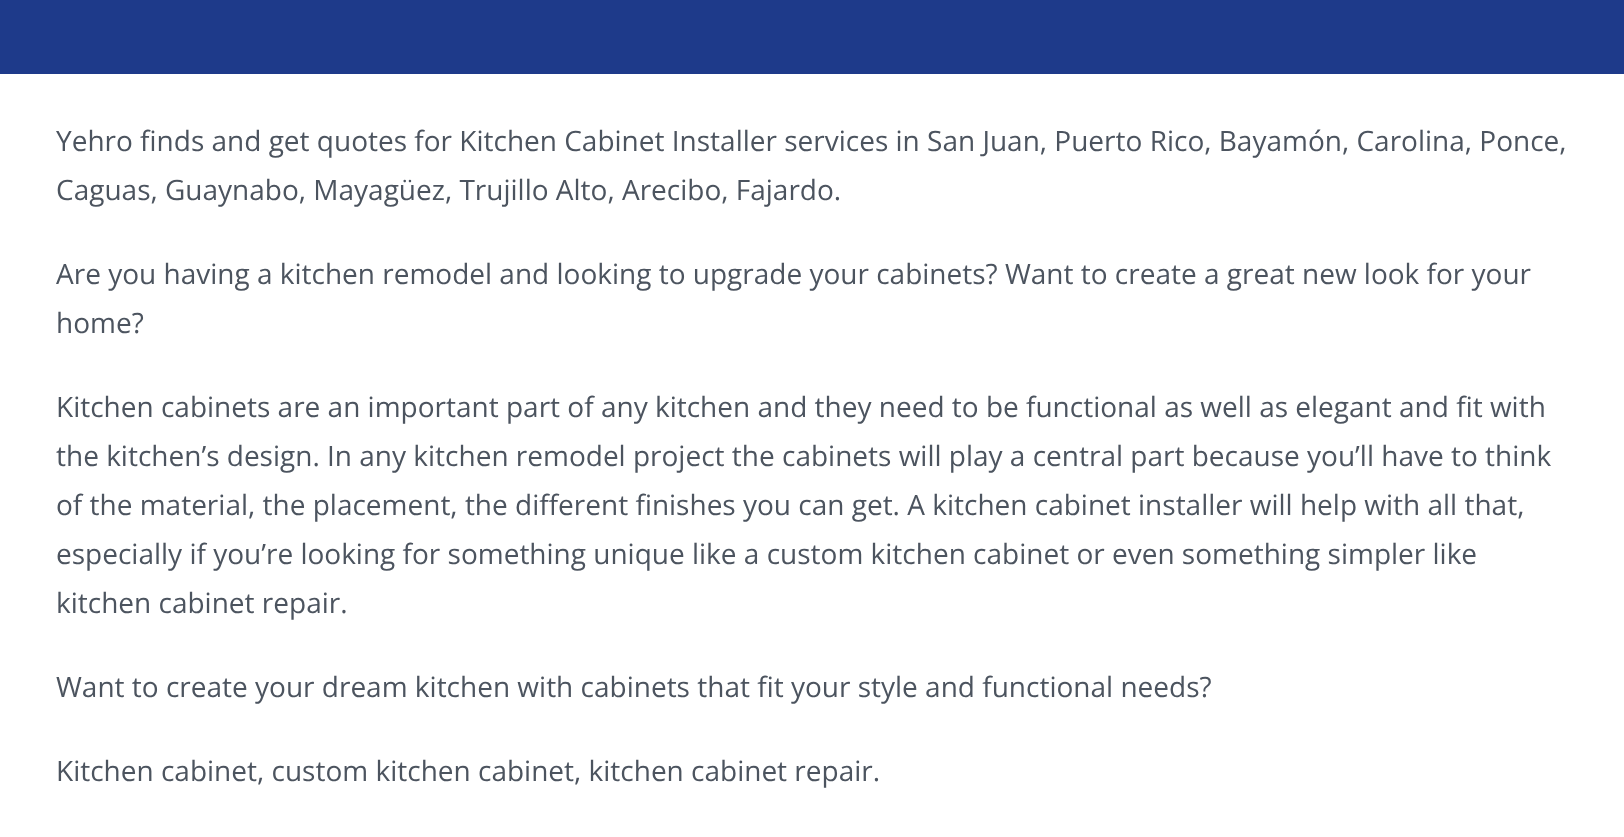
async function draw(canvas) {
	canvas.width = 1624;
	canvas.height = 837;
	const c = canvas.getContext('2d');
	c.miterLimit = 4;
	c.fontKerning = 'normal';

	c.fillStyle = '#fff';
	c.fillRect(0, 0, 1624, 837);
	c.fillStyle = '#1e3a8a';
	c.fillRect(0, 0, 1624, 74);
	c.font = '28px Open Sans';
	c.fillStyle = '#4c545f';
	for (const [text, x, y] of [
		['Yehro finds and get quotes for Kitchen Cabinet Installer services in San Juan, Puerto Rico, Bayamón, Carolina, Ponce,', 56, 151],
		['Caguas, Guaynabo, Mayagüez, Trujillo Alto, Arecibo, Fajardo.', 56, 200],
		['Are you having a kitchen remodel and looking to upgrade your cabinets? Want to create a great new look for your', 56, 284],
		['home?', 56, 333],
		['Kitchen cabinets are an important part of any kitchen and they need to be functional as well as elegant and fit with', 56, 417],
		['the kitchen’s design. In any kitchen remodel project the cabinets will play a central part because you’ll have to think', 56, 466],
		['of the material, the placement, the different finishes you can get. A kitchen cabinet installer will help with all that,', 56, 515],
		['especially if you’re looking for something unique like a custom kitchen cabinet or even something simpler like', 56, 564],
		['kitchen cabinet repair.', 56, 613],
		['Want to create your dream kitchen with cabinets that fit your style and functional needs?', 56, 697],
		['Kitchen cabinet, custom kitchen cabinet, kitchen cabinet repair.', 56, 781],
	]) {
		c.fillText(text, x, y);
	}
}

draw(document.querySelector('canvas'));
